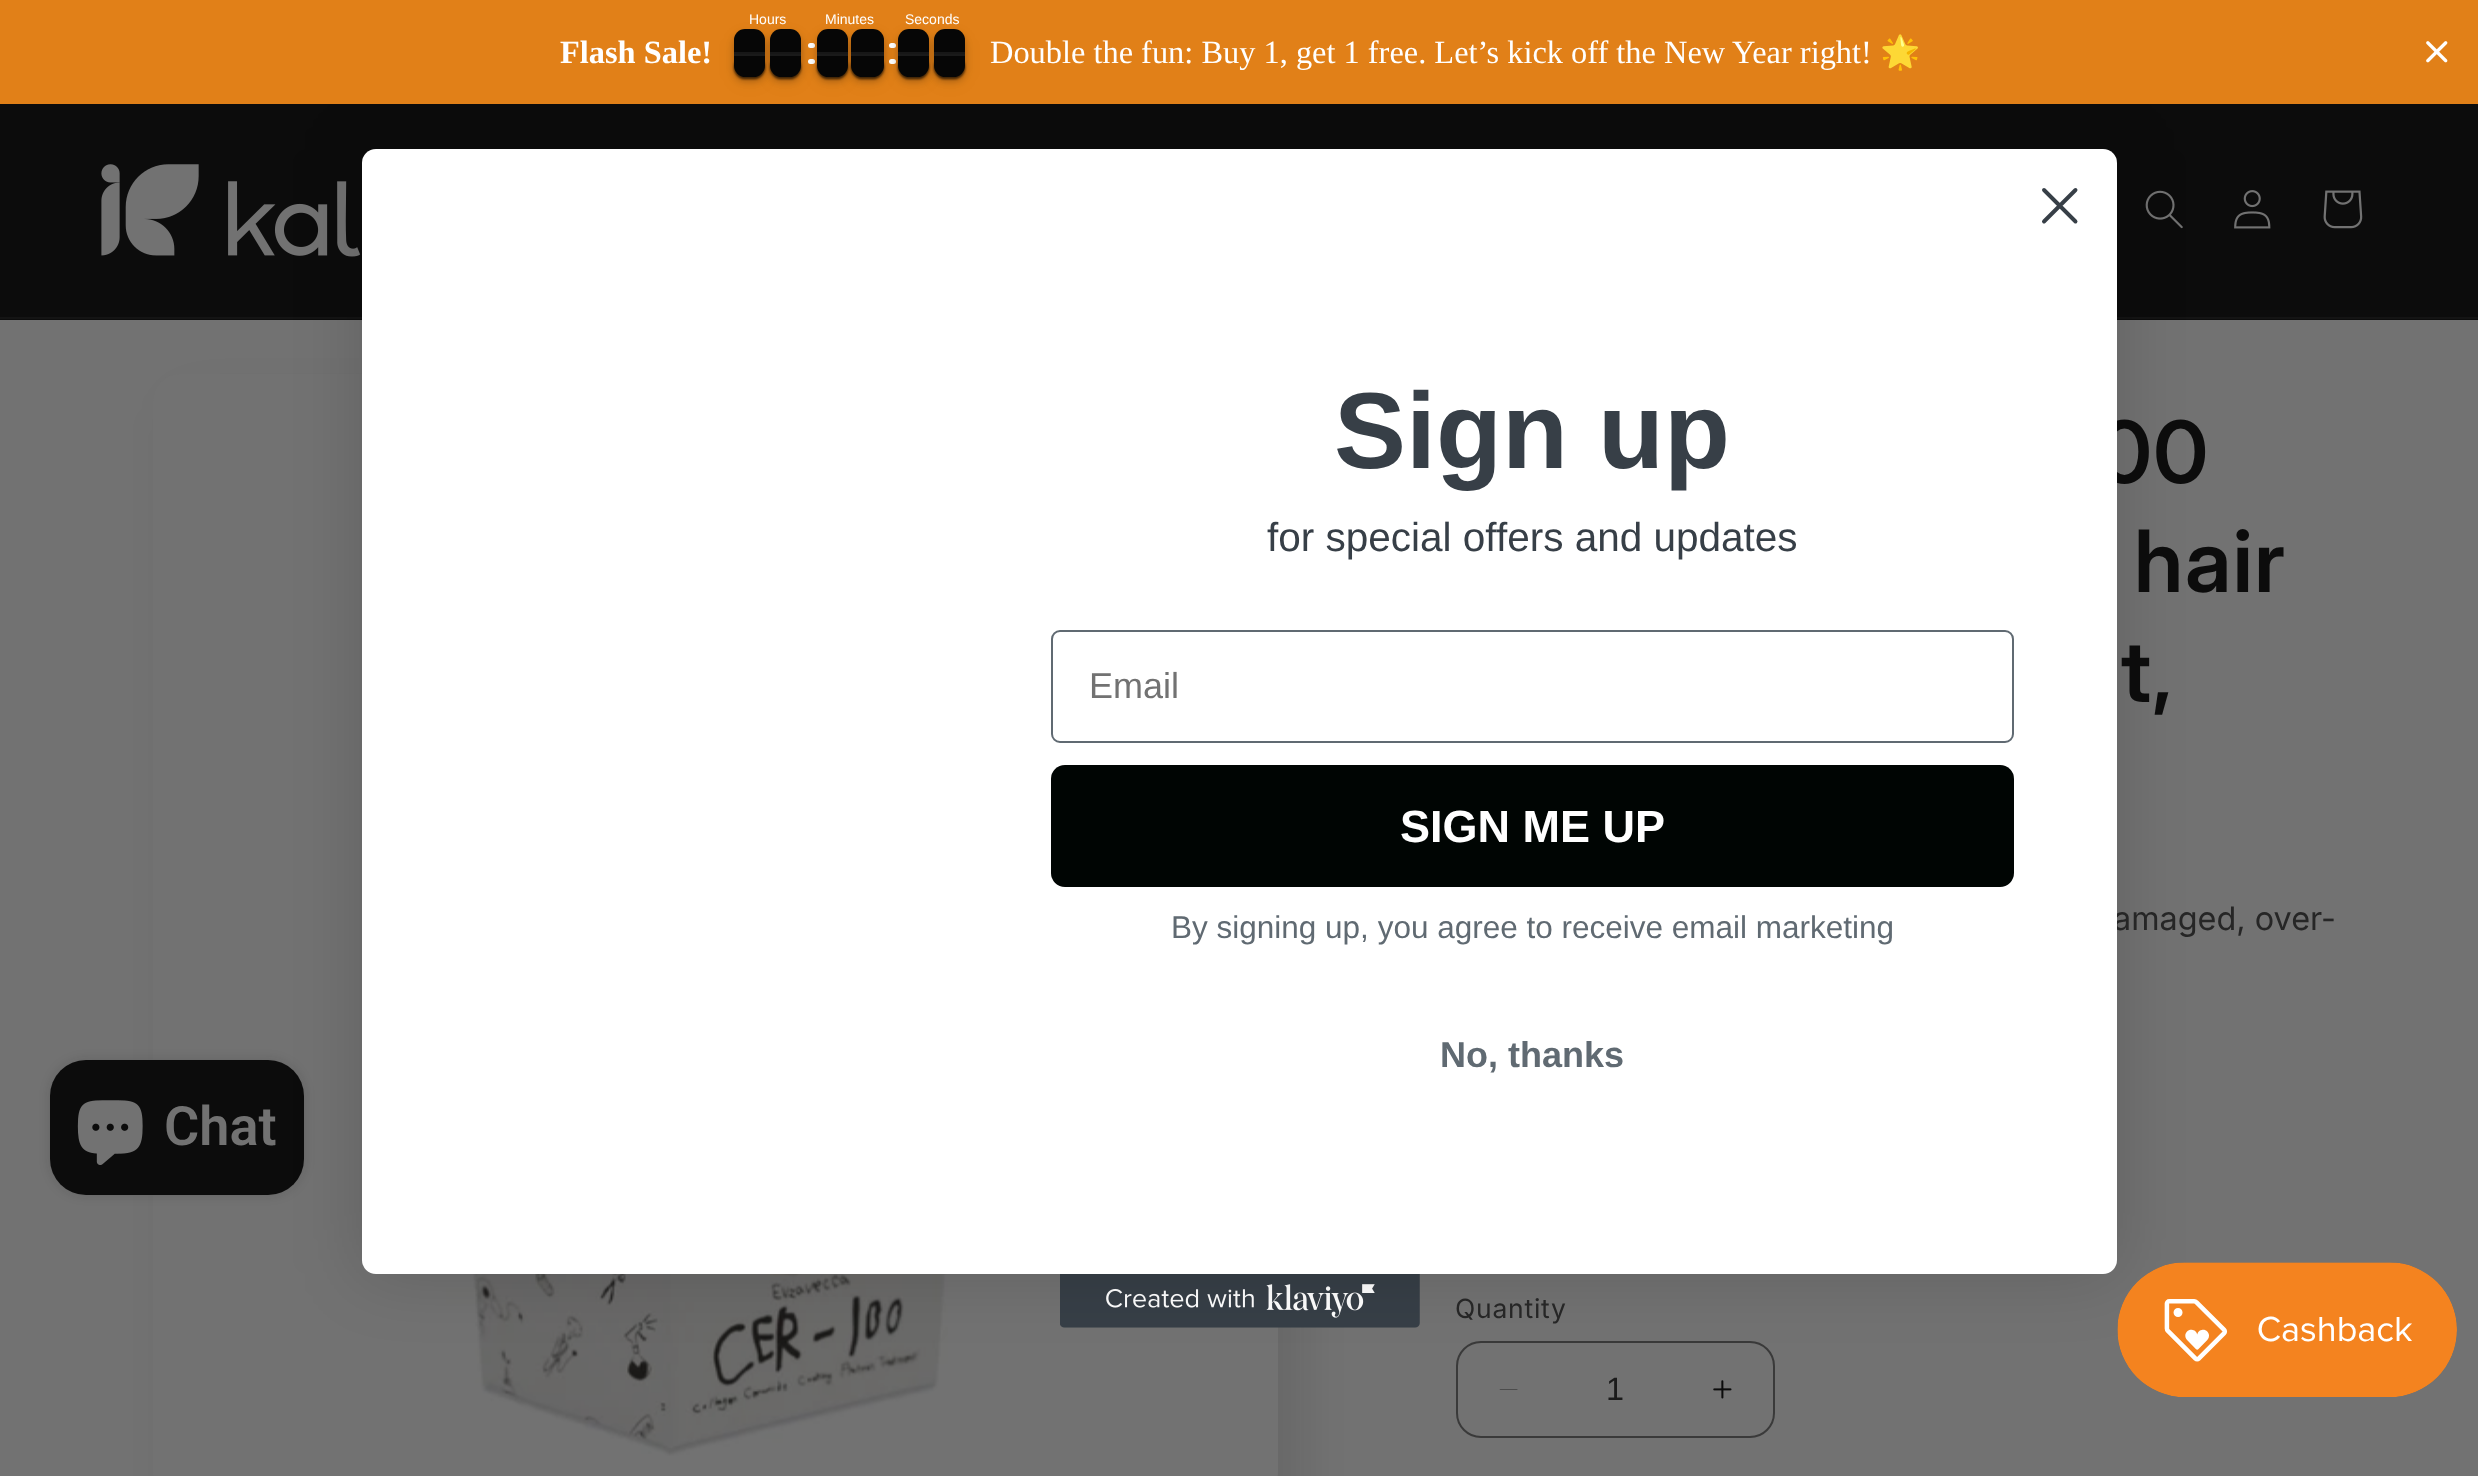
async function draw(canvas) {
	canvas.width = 2478;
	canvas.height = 1476;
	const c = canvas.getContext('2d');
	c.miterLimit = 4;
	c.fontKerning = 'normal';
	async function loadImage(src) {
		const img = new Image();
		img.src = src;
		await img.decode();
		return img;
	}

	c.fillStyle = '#727272';
	c.fillRect(0, 0, 2478, 1476);
	c.fillStyle = '#0c0c0c';
	c.fillRect(0, 104, 2478, 216);
	c.fillStyle = '#141414';
	c.fillRect(0, 317, 2478, 2);
	c.drawImage(await loadImage('img2.png'), 101, 164, 260, 93);
	c.drawImage(await loadImage('img3.png'), 2145, 190, 38, 39);
	c.fillStyle = '#0c0c0c1a';
	c.filter = 'blur(22.5px)';
	c.beginPath();
	c.roundRect(176, 401, 1125, 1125, 27);
	c.fill();
	c.filter = 'none';
	c.fillStyle = '#727272';
	c.beginPath();
	c.roundRect(153, 374, 1125, 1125, 27);
	c.fill();
	c.drawImage(await loadImage('img6.png'), 1060, 1274, 360, 54);
	c.fillStyle = '#0c0c0c26';
	c.filter = 'blur(5.5px)';
	c.beginPath();
	c.roundRect(50, 1060, 254, 135, 36);
	c.fill();
	c.filter = 'none';
	c.fillStyle = '#0c0c0c';
	c.beginPath();
	c.roundRect(50, 1060, 254, 135, 36);
	c.fill();
	c.drawImage(await loadImage('img8.png'), 417, 1274, 583, 182);
	c.drawImage(await loadImage('img9.png'), 1499, 1389, 19, 1);
	c.drawImage(await loadImage('img10.png'), 1713, 1380, 19, 19);
	c.beginPath();
	c.roundRect(1457, 1342, 317, 95, 24);
	c.strokeStyle = '#3a3a3a';
	c.lineWidth = 2;
	c.stroke();
	c.fillStyle = '#00000026';
	c.filter = 'blur(34px)';
	c.beginPath();
	c.roundRect(362, 149, 1755, 1125, 14);
	c.fill();
	c.filter = 'none';
	c.fillStyle = '#e18018';
	c.fillRect(0, 0, 2478, 104);
	c.fillStyle = '#0000000d';
	c.filter = 'blur(9px)';
	c.beginPath();
	c.roundRect(734, 36, 31, 47, 11);
	c.fill();
	c.filter = 'none';
	c.fillStyle = '#0000003d';
	c.filter = 'blur(3.5px)';
	c.beginPath();
	c.roundRect(734, 34, 31, 47, 11);
	c.fill();
	c.filter = 'none';
	c.fillStyle = '#00000066';
	c.filter = 'blur(1px)';
	c.beginPath();
	c.roundRect(734, 56, 31, 23, 11.5);
	c.fill();
	c.filter = 'none';
	c.fillStyle = '#0000000d';
	c.filter = 'blur(9px)';
	c.beginPath();
	c.roundRect(770, 36, 31, 47, 11);
	c.fill();
	c.filter = 'none';
	c.fillStyle = '#0000003d';
	c.filter = 'blur(3.5px)';
	c.beginPath();
	c.roundRect(770, 34, 31, 47, 11);
	c.fill();
	c.filter = 'none';
	c.fillStyle = '#060606';
	c.beginPath();
	c.roundRect(734, 29, 31, 25, [11, 11, 0, 0]);
	c.fill();
	c.fillStyle = '#33333366';
	c.fillRect(734, 52, 31, 2);
	c.fillStyle = '#00000066';
	c.filter = 'blur(1px)';
	c.beginPath();
	c.roundRect(734, 56, 31, 23, 11.5);
	c.fill();
	c.filter = 'none';
	c.fillStyle = '#060606';
	c.beginPath();
	c.roundRect(734, 54, 31, 23, [0, 0, 11.5, 11.5]);
	c.fill();
	c.fillStyle = '#cccccc1a';
	c.fillRect(734, 54, 31, 2);
	c.fillStyle = '#00000066';
	c.filter = 'blur(1px)';
	c.beginPath();
	c.roundRect(770, 56, 31, 23, 11.5);
	c.fill();
	c.filter = 'none';
	c.fillStyle = '#fff';
	c.beginPath();
	c.roundRect(808, 43, 7, 5, 2.5);
	c.fill();
	c.beginPath();
	c.roundRect(808, 59, 7, 5, 2.5);
	c.fill();
	c.fillStyle = '#0000000d';
	c.filter = 'blur(9px)';
	c.beginPath();
	c.roundRect(817, 36, 31, 47, 11);
	c.fill();
	c.filter = 'none';
	c.fillStyle = '#060606';
	c.beginPath();
	c.roundRect(770, 29, 31, 25, [11, 11, 0, 0]);
	c.fill();
	c.fillStyle = '#33333366';
	c.fillRect(770, 52, 31, 2);
	c.fillStyle = '#00000066';
	c.filter = 'blur(1px)';
	c.beginPath();
	c.roundRect(770, 56, 31, 23, 11.5);
	c.fill();
	c.filter = 'none';
	c.fillStyle = '#060606';
	c.beginPath();
	c.roundRect(770, 54, 31, 23, [0, 0, 11.5, 11.5]);
	c.fill();
	c.fillStyle = '#cccccc1a';
	c.fillRect(770, 54, 31, 2);
	c.font = '14px Liberation Sans';
	c.fillStyle = '#fff';
	c.fillText('Hours', 749, 24);
	c.fillStyle = '#0000003d';
	c.filter = 'blur(3.5px)';
	c.beginPath();
	c.roundRect(817, 34, 31, 47, 11);
	c.fill();
	c.filter = 'none';
	c.fillStyle = '#00000066';
	c.filter = 'blur(1px)';
	c.beginPath();
	c.roundRect(817, 56, 31, 23, 11.5);
	c.fill();
	c.filter = 'none';
	c.fillStyle = '#0000000d';
	c.filter = 'blur(9px)';
	c.beginPath();
	c.roundRect(851, 36, 33, 47, 11);
	c.fill();
	c.filter = 'none';
	c.fillStyle = '#0000003d';
	c.filter = 'blur(3.5px)';
	c.beginPath();
	c.roundRect(851, 34, 33, 47, 11);
	c.fill();
	c.filter = 'none';
	c.fillStyle = '#00000066';
	c.filter = 'blur(1px)';
	c.beginPath();
	c.roundRect(851, 56, 33, 23, 11.5);
	c.fill();
	c.filter = 'none';
	c.fillStyle = '#060606';
	c.beginPath();
	c.roundRect(817, 29, 31, 25, [11, 11, 0, 0]);
	c.fill();
	c.fillStyle = '#33333366';
	c.fillRect(817, 52, 31, 2);
	c.fillStyle = '#00000066';
	c.filter = 'blur(1px)';
	c.beginPath();
	c.roundRect(817, 56, 31, 23, 11.5);
	c.fill();
	c.filter = 'none';
	c.fillStyle = '#060606';
	c.beginPath();
	c.roundRect(817, 54, 31, 23, [0, 0, 11.5, 11.5]);
	c.fill();
	c.fillStyle = '#cccccc1a';
	c.fillRect(817, 54, 31, 2);
	c.fillStyle = '#fff';
	c.beginPath();
	c.roundRect(889, 43, 7, 5, 2.5);
	c.fill();
	c.beginPath();
	c.roundRect(889, 59, 7, 5, 2.5);
	c.fill();
	c.fillStyle = '#0000000d';
	c.filter = 'blur(9px)';
	c.beginPath();
	c.roundRect(898, 36, 31, 47, 11);
	c.fill();
	c.filter = 'none';
	c.fillStyle = '#060606';
	c.beginPath();
	c.roundRect(851, 29, 33, 25, [11, 11, 0, 0]);
	c.fill();
	c.fillStyle = '#33333366';
	c.fillRect(851, 52, 33, 2);
	c.fillStyle = '#00000066';
	c.filter = 'blur(1px)';
	c.beginPath();
	c.roundRect(851, 56, 33, 23, 11.5);
	c.fill();
	c.filter = 'none';
	c.fillStyle = '#060606';
	c.beginPath();
	c.roundRect(851, 54, 33, 23, [0, 0, 11.5, 11.5]);
	c.fill();
	c.fillStyle = '#cccccc1a';
	c.fillRect(851, 54, 33, 2);
	c.fillStyle = '#fff';
	c.fillText('Minutes', 825, 24);
	c.fillStyle = '#0000003d';
	c.filter = 'blur(3.5px)';
	c.beginPath();
	c.roundRect(898, 34, 31, 47, 11);
	c.fill();
	c.filter = 'none';
	c.fillStyle = '#00000066';
	c.filter = 'blur(1px)';
	c.beginPath();
	c.roundRect(898, 56, 31, 23, 11.5);
	c.fill();
	c.filter = 'none';
	c.fillStyle = '#0000000d';
	c.filter = 'blur(9px)';
	c.beginPath();
	c.roundRect(934, 36, 31, 47, 11);
	c.fill();
	c.filter = 'none';
	c.fillStyle = '#0000003d';
	c.filter = 'blur(3.5px)';
	c.beginPath();
	c.roundRect(934, 34, 31, 47, 11);
	c.fill();
	c.filter = 'none';
	c.fillStyle = '#060606';
	c.beginPath();
	c.roundRect(898, 29, 31, 25, [11, 11, 0, 0]);
	c.fill();
	c.fillStyle = '#33333366';
	c.fillRect(898, 52, 31, 2);
	c.fillStyle = '#00000066';
	c.filter = 'blur(1px)';
	c.beginPath();
	c.roundRect(898, 56, 31, 23, 11.5);
	c.fill();
	c.filter = 'none';
	c.fillStyle = '#060606';
	c.beginPath();
	c.roundRect(898, 54, 31, 23, [0, 0, 11.5, 11.5]);
	c.fill();
	c.fillStyle = '#cccccc1a';
	c.fillRect(898, 54, 31, 2);
	c.fillStyle = '#00000066';
	c.filter = 'blur(1px)';
	c.beginPath();
	c.roundRect(934, 56, 31, 23, 11.5);
	c.fill();
	c.filter = 'none';
	c.fillStyle = '#060606';
	c.beginPath();
	c.roundRect(934, 29, 31, 25, [11, 11, 0, 0]);
	c.fill();
	c.fillStyle = '#33333366';
	c.fillRect(934, 52, 31, 2);
	c.fillStyle = '#00000066';
	c.filter = 'blur(1px)';
	c.beginPath();
	c.roundRect(934, 56, 31, 23, 11.5);
	c.fill();
	c.filter = 'none';
	c.fillStyle = '#060606';
	c.beginPath();
	c.roundRect(934, 54, 31, 23, [0, 0, 11.5, 11.5]);
	c.fill();
	c.fillStyle = '#cccccc1a';
	c.fillRect(934, 54, 31, 2);
	c.fillStyle = '#fff';
	c.fillText('Seconds', 905, 24);
	c.font = 'bold 32.4px Liberation Serif';
	c.fillText('Flash Sale!', 560, 63);
	c.font = '32.4px Liberation Serif';
	c.fillText('Double the fun: Buy 1, get 1 free. Let’s kick off the New Year right!', 990, 63);
	c.font = '32.4px Noto Color Emoji';
	c.fillText('🌟', 1880, 63);
	c.drawImage(await loadImage('img1.png'), 2426, 41, 22, 22);
	c.drawImage(await loadImage('img4.png'), 2234, 190, 37, 39);
	c.drawImage(await loadImage('img5.png'), 2323, 190, 40, 39);
	c.letterSpacing = '1.5px';
	c.font = '600 86px Inter';
	c.fillStyle = '#0c0c0c';
	c.fillText('00', 2097, 483);
	c.letterSpacing = '0px';
	c.font = '32.4px Inter';
	c.fillStyle = '#262626';
	c.fillText('amaged, over-', 2113, 930);
	c.fillStyle = '#fff';
	c.beginPath();
	c.roundRect(362, 149, 1755, 1125, 14);
	c.fill();
	c.beginPath();
	c.moveTo(2044, 190);
	c.lineTo(2075.5, 221.5);
	c.moveTo(2044, 221.5);
	c.lineTo(2075.5, 190);
	c.closePath();
	c.strokeStyle = '#373f47';
	c.lineWidth = 3.9;
	c.lineCap = 'round';
	c.lineJoin = 'round';
	c.stroke();
	c.font = 'bold 108px Liberation Sans';
	c.fillStyle = '#373f47';
	c.fillText('Sign up', 1334, 468);
	c.font = '40.5px Liberation Sans';
	c.fillText('for special offers and updates', 1267, 551);
	c.beginPath();
	c.roundRect(1052, 631, 961, 111, 8);
	c.strokeStyle = '#606a72';
	c.lineWidth = 2;
	c.lineJoin = 'miter';
	c.stroke();
	c.font = '36px Liberation Sans';
	c.fillStyle = '#727272';
	c.fillText('Email', 1089, 698);
	c.fillStyle = '#000503';
	c.beginPath();
	c.roundRect(1051, 765, 963, 122, 14);
	c.fill();
	c.font = 'bold 45px Liberation Sans';
	c.fillStyle = '#fff';
	c.fillText('SIGN ME UP', 1400, 842);
	c.font = '31.5px Liberation Sans';
	c.fillStyle = '#606a72';
	c.fillText('By signing up, you agree to receive email marketing', 1171, 938);
	c.font = 'bold 36px Liberation Sans';
	c.fillText('No, thanks', 1440, 1067);
	c.drawImage(await loadImage('img7.png'), 77, 1100, 66, 65);
	c.font = '600 54px Roboto';
	c.fillStyle = '#727272';
	c.fillText('Chat', 164, 1145);
	c.letterSpacing = '1.5px';
	c.font = '600 86px Inter';
	c.fillStyle = '#0c0c0c';
	c.fillText('hair', 2134, 592);
	c.wordSpacing = '-2px';
	c.fillText('t,', 2121, 702);
	c.letterSpacing = '0.75px';
	c.wordSpacing = '0px';
	c.font = '26.5px Inter';
	c.fillStyle = '#262626';
	c.fillText('Quantity', 1455, 1318);
	c.letterSpacing = '0px';
	c.font = '32.4px Liberation Sans';
	c.fillStyle = '#1b1b1b';
	c.fillText('1', 1606, 1400);
	c.drawImage(await loadImage('img11.png'), 2117, 1262, 340, 135);
}

draw(document.querySelector('canvas'));
